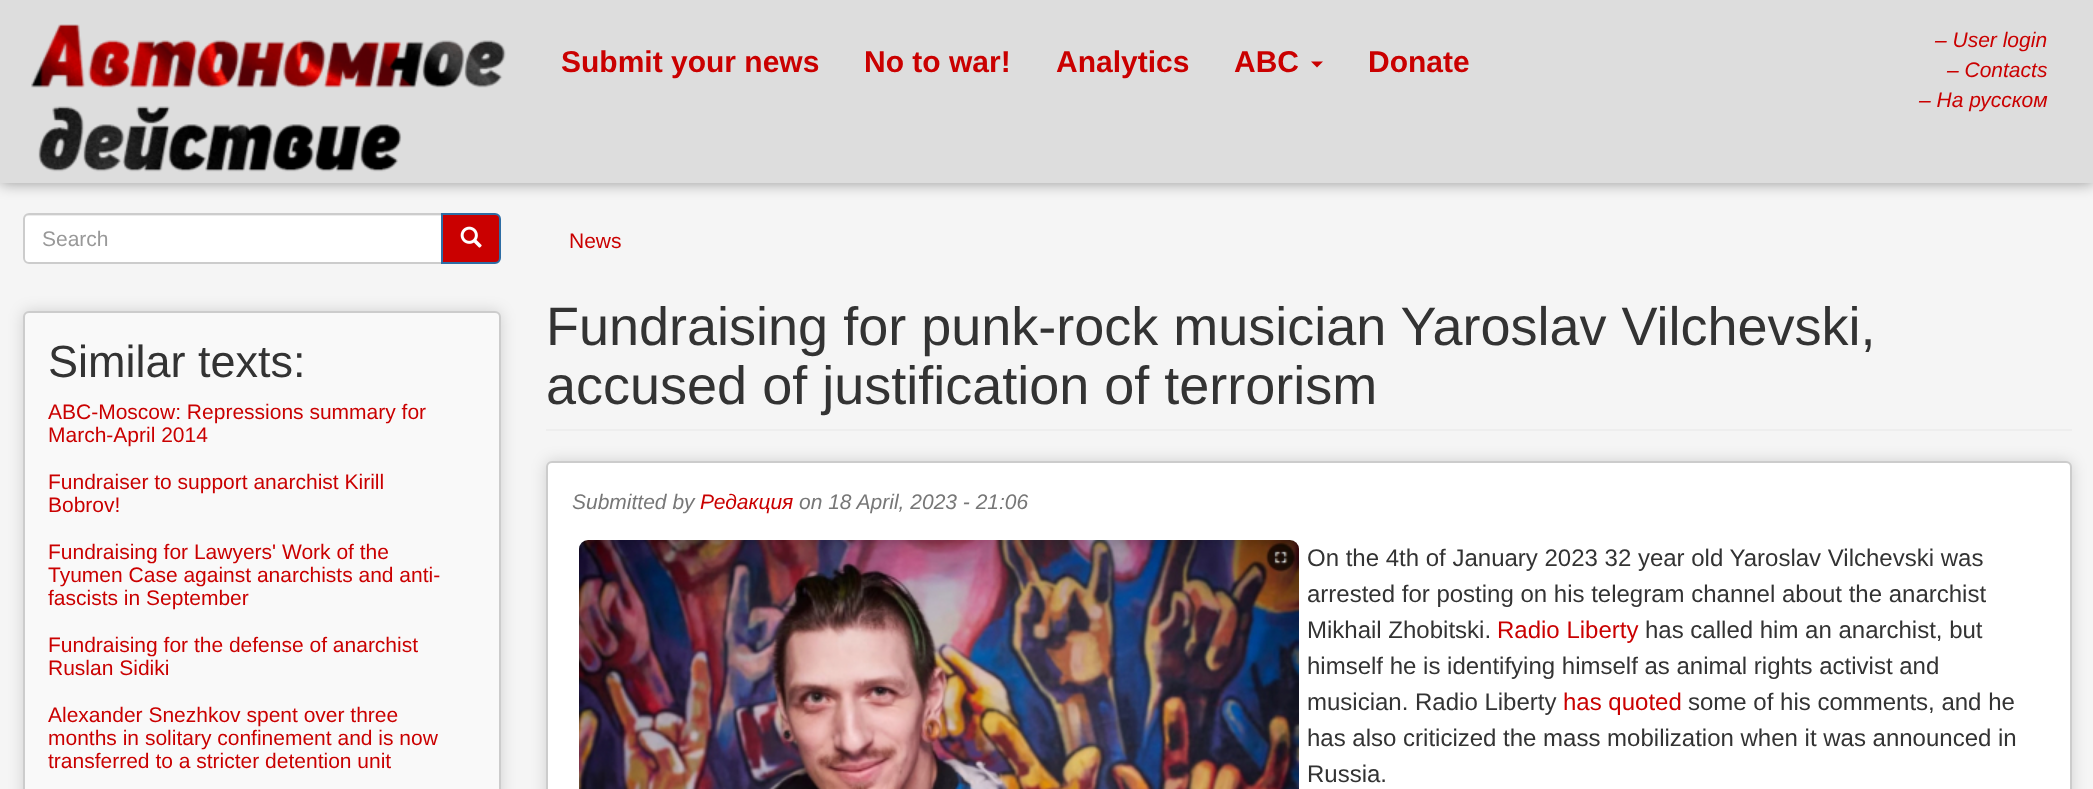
async function draw(canvas) {
	canvas.width = 2093;
	canvas.height = 789;
	const c = canvas.getContext('2d');
	c.miterLimit = 4;
	c.fontKerning = 'normal';
	async function loadImage(src) {
		const img = new Image();
		img.src = src;
		await img.decode();
		return img;
	}

	c.fillStyle = '#f5f5f5';
	c.fillRect(0, 0, 2093, 789);
	c.fillStyle = '#00000066';
	c.filter = 'blur(7.5px)';
	c.beginPath();
	c.rect(0, 0, 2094, 183);
	c.fill();
	c.filter = 'none';
	c.fillStyle = '#ddd';
	c.fillRect(0, 0, 2093, 183);
	c.drawImage(await loadImage('img1.png'), 31, 24, 475, 148);
	c.font = 'bold 30px Liberation Sans';
	c.fillStyle = '#ca0000';
	for (const [text, x, y] of [
		['Submit your news', 561, 72],
		['No to war!', 864, 72],
		['Analytics', 1056, 72],
		['ABC', 1234, 72],
	]) {
		c.fillText(text, x, y);
	}
	c.beginPath();
	c.moveTo(1311, 61.5);
	c.lineTo(1323, 61.5);
	c.lineTo(1317, 67.5);
	c.closePath();
	c.fill();
	c.fillText('Donate', 1368, 72);
	c.font = 'italic 21px Liberation Sans';
	for (const [text, x, y] of [
		['– User login', 1935, 47],
		['– Contacts', 1947, 77],
		['– На русском', 1919, 107],
	]) {
		c.fillText(text, x, y);
	}
	c.fillStyle = '#fff';
	c.beginPath();
	c.roundRect(23, 213, 420, 51, [6, 0, 0, 6]);
	c.fill();
	c.fillStyle = '#ececec';
	c.beginPath();
	c.moveTo(28, 216);
	c.lineTo(441, 216);
	c.lineTo(441, 215);
	c.lineTo(29, 215);
	c.bezierCurveTo(26, 215, 24, 217, 24, 220);
	c.bezierCurveTo(24, 218, 26, 216, 28, 216);
	c.closePath();
	c.fill();
	c.beginPath();
	c.roundRect(24, 214, 418, 49, [5, 0, 0, 5]);
	c.strokeStyle = '#ccc';
	c.lineWidth = 2;
	c.stroke();
	c.font = '21px Liberation Sans';
	c.fillStyle = '#999';
	c.fillText('Search', 42, 246);
	c.fillStyle = '#ca0000';
	c.beginPath();
	c.roundRect(442, 214, 58, 49, [0, 5, 5, 0]);
	c.fill();
	c.strokeStyle = '#2e6da4';
	c.stroke();
	c.drawImage(await loadImage('img2.png'), 460, 226, 22, 22);
	c.fillStyle = '#00000026';
	c.filter = 'blur(7.5px)';
	c.beginPath();
	c.roundRect(23, 311, 478, 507, 6);
	c.fill();
	c.filter = 'none';
	c.fillStyle = '#f9f9f9';
	c.beginPath();
	c.roundRect(24, 312, 476, 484, 5);
	c.fill();
	c.strokeStyle = '#ccc';
	c.stroke();
	c.font = '45px Liberation Sans';
	c.fillStyle = '#333';
	c.fillText('Similar texts:', 48, 377);
	c.font = '21px Liberation Sans';
	c.fillStyle = '#ca0000';
	for (const [text, x, y] of [
		['ABC-Moscow: Repressions summary for', 48, 419],
		['March-April 2014', 48, 442],
		['Fundraiser to support anarchist Kirill', 48, 489],
		['Bobrov!', 48, 512],
		['Fundraising for Lawyers\' Work of the', 48, 559],
		['Tyumen Case against anarchists and anti-', 48, 582],
		['fascists in September', 48, 605],
		['Fundraising for the defense of anarchist', 48, 652],
		['Ruslan Sidiki', 48, 675],
		['Alexander Snezhkov spent over three', 48, 722],
		['months in solitary confinement and is now', 48, 745],
		['transferred to a stricter detention unit', 48, 768],
		['News', 569, 248],
	]) {
		c.fillText(text, x, y);
	}
	c.fillStyle = '#eee';
	c.fillRect(546, 429, 1526, 2);
	c.font = '54px Liberation Sans';
	c.fillStyle = '#333';
	c.fillText('Fundraising for punk-rock musician Yaroslav Vilchevski,', 546, 345);
	c.fillText('accused of justification of terrorism', 546, 404);
	c.fillStyle = '#00000026';
	c.filter = 'blur(7.5px)';
	c.beginPath();
	c.roundRect(546, 461, 1526, 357, 6);
	c.fill();
	c.filter = 'none';
	c.fillStyle = '#fff';
	c.beginPath();
	c.roundRect(547, 462, 1524, 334, 5);
	c.fill();
	c.stroke();
	c.font = 'italic 21px Liberation Sans';
	c.fillStyle = '#777';
	c.fillText('Submitted by', 572, 509);
	c.fillStyle = '#ca0000';
	c.fillText('Редакция', 700, 509);
	c.fillStyle = '#777';
	c.fillText('on 18 April, 2023 - 21:06', 799, 509);
	c.drawImage(await loadImage('img3.png'), 579, 540, 720, 249);
	c.font = '24px Liberation Sans';
	c.fillStyle = '#333';
	for (const [text, x, y] of [
		['On the 4th of January 2023 32 year old Yaroslav Vilchevski was', 1307, 566],
		['arrested for posting on his telegram channel about the anarchist', 1307, 602],
		['Mikhail Zhobitski.', 1307, 638],
	]) {
		c.fillText(text, x, y);
	}
	c.fillStyle = '#ca0000';
	c.fillText('Radio Liberty', 1497, 638);
	c.fillStyle = '#333';
	for (const [text, x, y] of [
		['has called him an anarchist, but', 1645, 638],
		['himself he is identifying himself as animal rights activist and', 1307, 674],
		['musician. Radio Liberty', 1307, 710],
	]) {
		c.fillText(text, x, y);
	}
	c.fillStyle = '#ca0000';
	c.fillText('has quoted', 1563, 710);
	c.fillStyle = '#333';
	for (const [text, x, y] of [
		['some of his comments, and he', 1688, 710],
		['has also criticized the mass mobilization when it was announced in', 1307, 746],
		['Russia.', 1307, 782],
	]) {
		c.fillText(text, x, y);
	}
}

draw(document.querySelector('canvas'));
